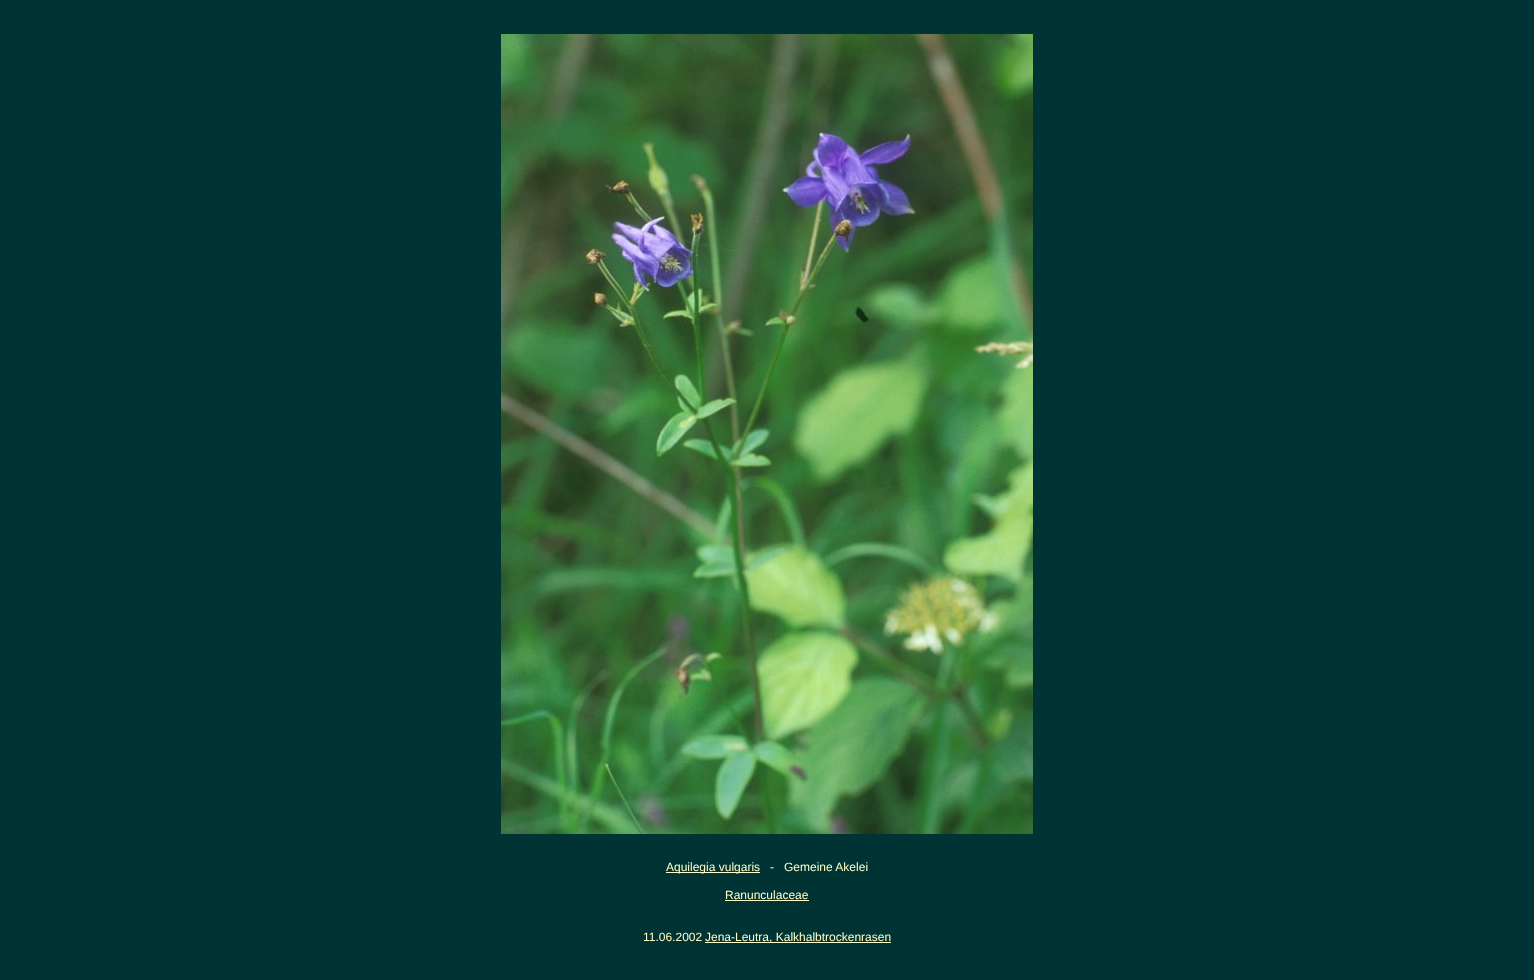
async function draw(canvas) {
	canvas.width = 1534;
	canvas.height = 980;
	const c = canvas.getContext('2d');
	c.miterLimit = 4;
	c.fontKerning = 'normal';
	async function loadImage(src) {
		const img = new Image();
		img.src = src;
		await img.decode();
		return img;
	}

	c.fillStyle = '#033';
	c.fillRect(0, 0, 1534, 980);
	c.drawImage(await loadImage('img1.png'), 501, 34, 532, 800);
	c.fillStyle = '#ffc';
	c.fillRect(666, 872, 94, 1);
	c.font = '12px Liberation Sans';
	for (const [text, x, y] of [
		['Aquilegia vulgaris', 666, 871],
		['-   Gemeine Akelei', 770, 871],
		['Ranunculaceae', 725, 899],
	]) {
		c.fillText(text, x, y);
	}
	c.fillRect(725, 900, 84, 1);
	c.fillText('11.06.2002', 643, 941);
	c.fillRect(705, 942, 186, 1);
	c.fillText('Jena-Leutra, Kalkhalbtrockenrasen', 705, 941);
}

draw(document.querySelector('canvas'));
